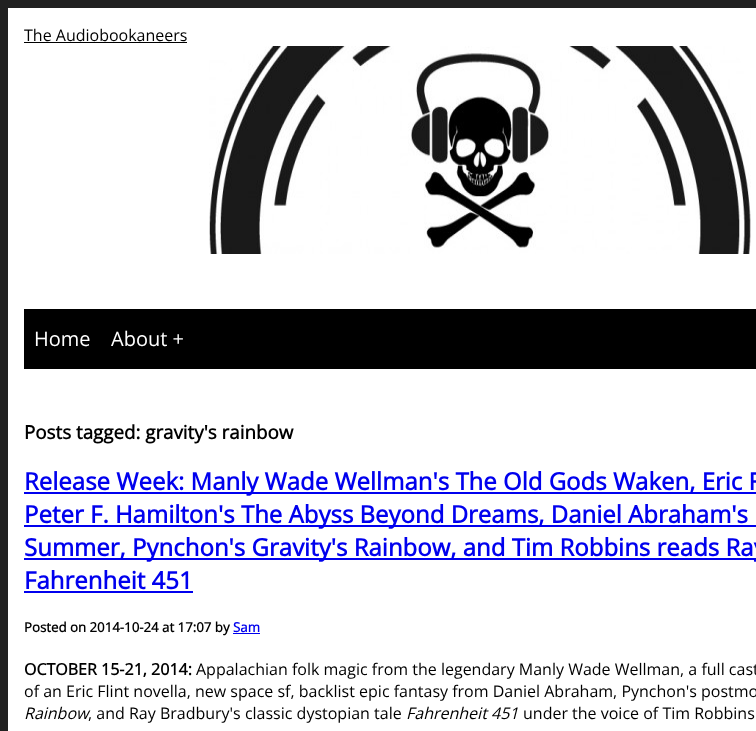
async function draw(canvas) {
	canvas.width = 756;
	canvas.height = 731;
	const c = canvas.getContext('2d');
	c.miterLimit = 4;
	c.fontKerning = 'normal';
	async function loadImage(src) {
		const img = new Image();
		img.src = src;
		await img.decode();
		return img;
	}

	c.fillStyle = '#212121';
	c.fillRect(0, 0, 756, 731);
	c.fillStyle = '#fff';
	c.fillRect(8, 8, 748, 723);
	c.font = '16px Open Sans';
	c.fillStyle = '#000';
	c.fillText('The Audiobookaneers', 24, 41);
	c.fillRect(24, 42, 163, 1);
	c.drawImage(await loadImage('img1.png'), 209, 46, 542, 208);
	c.fillRect(24, 309, 732, 60);
	c.font = '20px Open Sans';
	c.fillStyle = '#fff';
	c.fillText('Home', 34, 346);
	c.fillText('About +', 111, 346);
	c.font = 'bold 18.75px Open Sans';
	c.fillStyle = '#000';
	c.fillText('Posts tagged: gravity\'s rainbow', 24, 439);
	c.fillStyle = '#00e';
	c.fillRect(24, 492, 732, 2);
	c.font = 'bold 24px Open Sans';
	c.fillText('Release Week: Manly Wade Wellman\'s The Old Gods Waken, Eric F', 24, 490);
	c.fillRect(24, 525, 732, 2);
	c.fillText('Peter F. Hamilton\'s The Abyss Beyond Dreams, Daniel Abraham\'s', 24, 523);
	c.fillRect(24, 558, 732, 2);
	c.fillText('Summer, Pynchon\'s Gravity\'s Rainbow, and Tim Robbins reads Ray', 24, 556);
	c.fillText('Fahrenheit 451', 24, 589);
	c.fillRect(24, 591, 169, 2);
	c.font = 'bold 13.25px Open Sans';
	c.fillStyle = '#000';
	c.fillText('Posted on 2014-10-24 at 17:07 by', 24, 632);
	c.fillStyle = '#00e';
	c.fillText('Sam', 233, 632);
	c.fillRect(233, 633, 27, 1);
	c.font = 'bold 16px Open Sans';
	c.fillStyle = '#000';
	c.fillText('OCTOBER 15-21, 2014:', 24, 675);
	c.font = '16px Open Sans';
	c.fillText('Appalachian folk magic from the legendary Manly Wade Wellman, a full cast', 196, 675);
	c.fillText('of an Eric Flint novella, new space sf, backlist epic fantasy from Daniel Abraham, Pynchon\'s postmo', 24, 697);
	c.font = 'italic 16px Open Sans';
	c.fillText('Rainbow', 24, 719);
	c.font = '16px Open Sans';
	c.fillText(', and Ray Bradbury\'s classic dystopian tale', 88, 719);
	c.font = 'italic 16px Open Sans';
	c.fillText('Fahrenheit 451', 406, 719);
	c.font = '16px Open Sans';
	c.fillText('under the voice of Tim Robbins', 523, 719);
}

draw(document.querySelector('canvas'));
